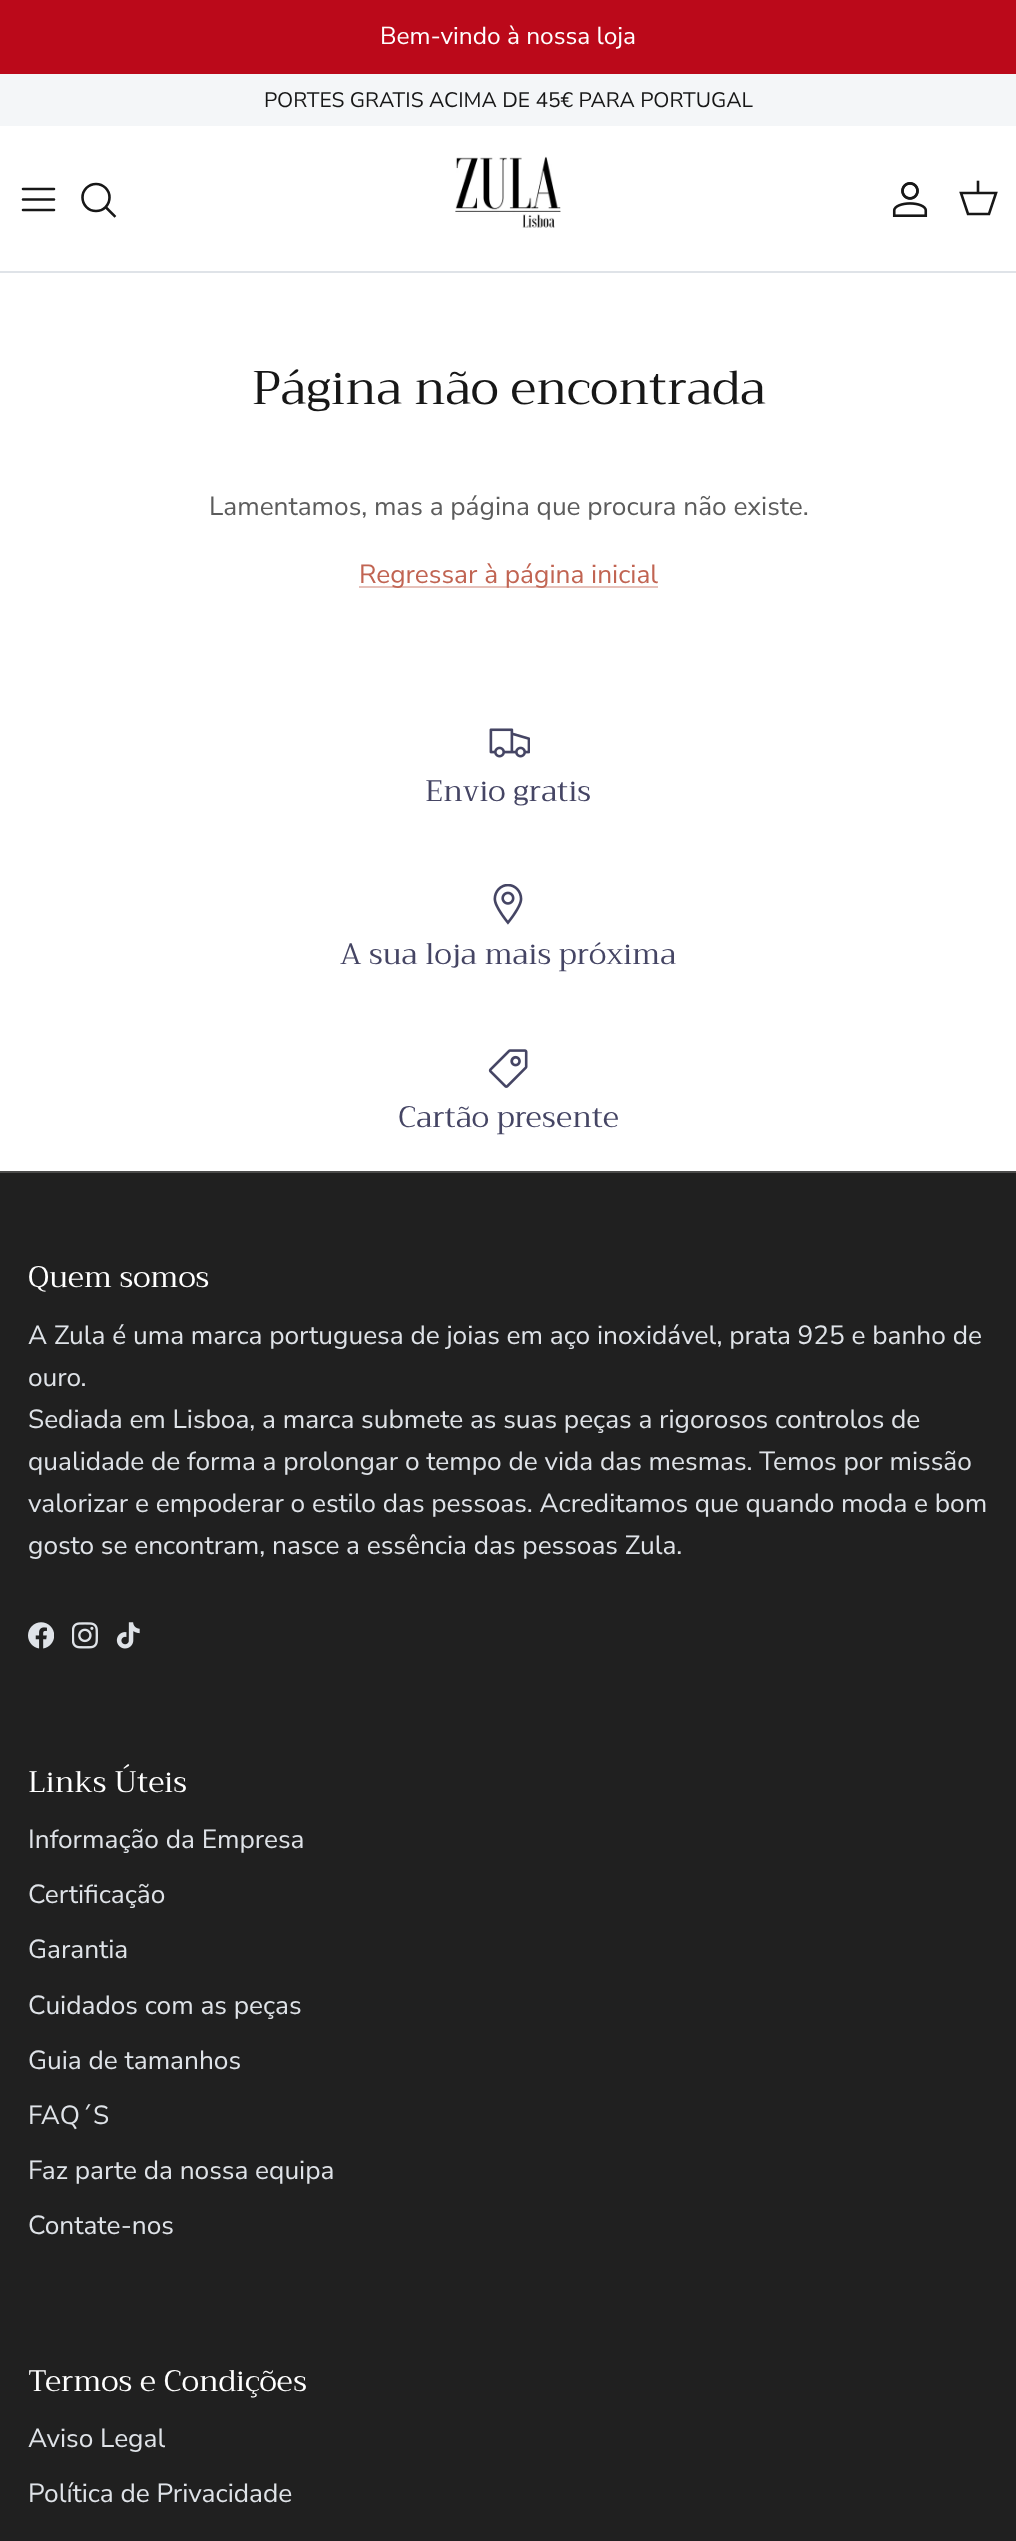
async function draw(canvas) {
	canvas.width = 1016;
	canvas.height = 2541;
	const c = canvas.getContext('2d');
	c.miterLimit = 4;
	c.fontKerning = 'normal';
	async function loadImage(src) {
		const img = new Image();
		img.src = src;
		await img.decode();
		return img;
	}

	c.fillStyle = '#fff';
	c.fillRect(0, 0, 1016, 2541);
	c.fillStyle = '#bb091a';
	c.fillRect(0, 0, 1016, 74);
	c.font = '24.5px Nunito Sans';
	c.fillStyle = '#fff';
	c.fillText('Bem-vindo à nossa loja', 380, 44);
	c.fillStyle = '#f4f6f8';
	c.fillRect(0, 74, 1016, 52);
	c.font = '21px Nunito Sans';
	c.fillStyle = '#171717';
	c.fillText('PORTES GRATIS ACIMA DE 45€ PARA PORTUGAL', 264, 107);
	c.fillStyle = '#dfe3e8';
	c.fillRect(0, 271, 1016, 2);
	c.beginPath();
	c.moveTo(23, 199.5);
	c.lineTo(54, 199.5);
	c.moveTo(23, 189);
	c.lineTo(54, 189);
	c.moveTo(23, 210);
	c.lineTo(54, 210);
	c.strokeStyle = '#171717';
	c.lineWidth = 2.6;
	c.lineCap = 'round';
	c.lineJoin = 'round';
	c.stroke();
	c.beginPath();
	c.arc(96, 197.5, 13.5, 0, 2 * Math.PI);
	c.stroke();
	c.beginPath();
	c.moveTo(106.5, 208);
	c.lineTo(114.5, 216);
	c.lineCap = 'square';
	c.lineJoin = 'miter';
	c.stroke();
	c.drawImage(await loadImage('img1.png'), 455, 156, 106, 72);
	c.drawImage(await loadImage('img2.png'), 892, 182, 36, 35);
	c.beginPath();
	c.moveTo(961, 193);
	c.lineTo(996, 193);
	c.lineTo(989, 214);
	c.lineTo(968, 214);
	c.closePath();
	c.lineCap = 'butt';
	c.stroke();
	c.beginPath();
	c.moveTo(978, 192.5);
	c.lineTo(978, 182);
	c.lineCap = 'square';
	c.stroke();
	c.font = '47.25px Trirong';
	c.fillStyle = '#171717';
	c.fillText('Página não encontrada', 252, 404);
	c.font = '26.25px Nunito Sans';
	c.fillStyle = '#5c5c5c';
	c.fillText('Lamentamos, mas a página que procura não existe.', 209, 515);
	c.fillStyle = '#e6c1ba';
	c.fillRect(359, 586, 299, 2);
	c.fillStyle = '#c16452';
	c.fillText('Regressar à página inicial', 359, 583);
	c.drawImage(await loadImage('img3.png'), 489, 728, 41, 30);
	c.font = '29.6px Trirong';
	c.fillStyle = '#454564';
	c.fillText('Envio gratis', 425, 801);
	c.drawImage(await loadImage('img4.png'), 493, 884, 30, 41);
	c.fillText('A sua loja mais próxima', 340, 964);
	c.drawImage(await loadImage('img5.png'), 488, 1049, 40, 39);
	c.fillText('Cartão presente', 398, 1127);
	c.fillStyle = '#202020';
	c.fillRect(0, 1173, 1016, 1368);
	c.fillStyle = '#4c4c4b';
	c.fillRect(0, 1171, 1016, 2);
	c.fillStyle = '#fff';
	c.fillText('Quem somos', 28, 1287);
	c.font = '26.25px Nunito Sans';
	c.fillStyle = '#dfe3e8';
	for (const [text, x, y] of [
		['A Zula é uma marca portuguesa de joias em aço inoxidável, prata 925 e banho de', 28, 1344],
		['ouro.', 28, 1386],
		['Sediada em Lisboa, a marca submete as suas peças a rigorosos controlos de', 28, 1428],
		['qualidade de forma a prolongar o tempo de vida das mesmas. Temos por missão', 28, 1470],
		['valorizar e empoderar o estilo das pessoas. Acreditamos que quando moda e bom', 28, 1512],
		['gosto se encontram, nasce a essência das pessoas Zula.', 28, 1554],
	]) {
		c.fillText(text, x, y);
	}
	c.drawImage(await loadImage('img6.png'), 28, 1622, 26, 27);
	c.drawImage(await loadImage('img7.png'), 72, 1622, 26, 27);
	c.drawImage(await loadImage('img8.png'), 116, 1622, 24, 27);
	c.font = '29.6px Trirong';
	c.fillStyle = '#fff';
	c.fillText('Links Úteis', 28, 1792);
	c.font = '26.25px Nunito Sans';
	c.fillStyle = '#dfe3e8';
	for (const [text, x, y] of [
		['Informação da Empresa', 28, 1848],
		['Certificação', 28, 1903],
		['Garantia', 28, 1958],
		['Cuidados com as peças', 28, 2014],
		['Guia de tamanhos', 28, 2069],
		['FAQ´S', 28, 2124],
		['Faz parte da nossa equipa', 28, 2179],
		['Contate-nos', 28, 2234],
	]) {
		c.fillText(text, x, y);
	}
	c.font = '29.6px Trirong';
	c.fillStyle = '#fff';
	c.fillText('Termos e Condições', 28, 2391);
	c.font = '26.25px Nunito Sans';
	c.fillStyle = '#dfe3e8';
	c.fillText('Aviso Legal', 28, 2447);
	c.fillText('Política de Privacidade', 28, 2502);
}

draw(document.querySelector('canvas'));
